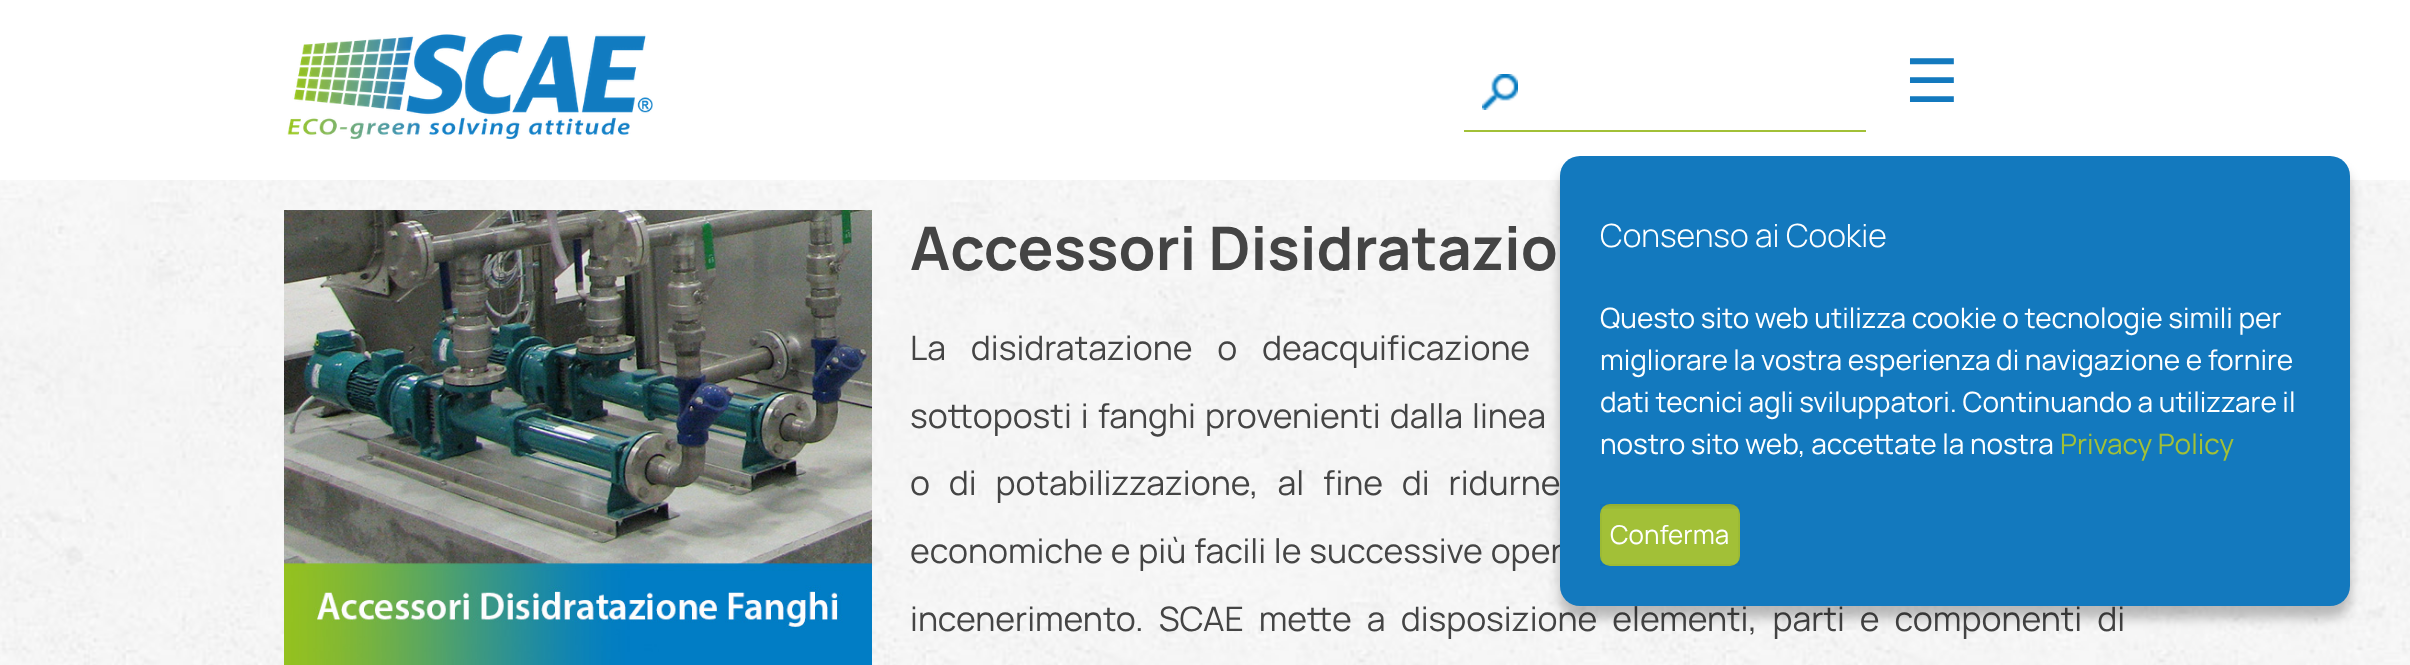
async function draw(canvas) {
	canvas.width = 2410;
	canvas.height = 665;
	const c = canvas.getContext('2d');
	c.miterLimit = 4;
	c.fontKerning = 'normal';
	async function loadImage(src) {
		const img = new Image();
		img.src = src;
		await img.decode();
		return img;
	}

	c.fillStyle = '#fff';
	c.fillRect(0, 0, 2410, 665);
	c.drawImage(await loadImage('img1.png'), 287, 34, 366, 106);
	c.drawImage(await loadImage('img2.png'), 1482, 74, 36, 36);
	c.fillStyle = '#a2c037';
	c.fillRect(1464, 130, 402, 2);
	c.font = '60px DejaVu Sans';
	c.fillStyle = '#1379be';
	c.fillText('☰', 1905, 102);
	c.drawImage(await loadImage('img3.png'), 0, 180, 2410, 485);
	c.drawImage(await loadImage('img4.png'), 284, 210, 588, 455);
	c.font = 'bold 60px Manrope';
	c.fillStyle = '#444';
	c.fillText('Accessori Disidratazio', 910, 270);
	c.wordSpacing = '18px';
	c.font = '33.8px Manrope';
	c.fillText('La disidratazione o deacquificazione', 910, 360);
	c.wordSpacing = '2.25px';
	c.fillText('sottoposti i fanghi provenienti dalla linea', 910, 428);
	c.wordSpacing = '12px';
	c.fillText('o di potabilizzazione, al fine di ridurne', 910, 495);
	c.wordSpacing = '1px';
	c.fillText('economiche e più facili le successive oper', 910, 563);
	c.wordSpacing = '8.25px';
	c.fillText('incenerimento. SCAE mette a disposizione elementi, parti e componenti di', 910, 631);
	c.fillStyle = '#00000040';
	c.filter = 'blur(6px)';
	c.beginPath();
	c.roundRect(1560, 168, 790, 450, 20);
	c.fill();
	c.filter = 'none';
	c.fillStyle = '#1379be';
	c.beginPath();
	c.roundRect(1560, 156, 790, 450, 20);
	c.fill();
	c.wordSpacing = '0px';
	c.font = '300 32px Manrope';
	c.fillStyle = '#fff';
	c.fillText('Consenso ai Cookie', 1600, 247);
	c.font = '28px Manrope';
	for (const [text, x, y] of [
		['Questo sito web utilizza cookie o tecnologie simili per', 1600, 328],
		['migliorare la vostra esperienza di navigazione e fornire', 1600, 370],
		['dati tecnici agli sviluppatori. Continuando a utilizzare il', 1600, 412],
		['nostro sito web, accettate la nostra', 1600, 454],
	]) {
		c.fillText(text, x, y);
	}
	c.fillStyle = '#a2c037';
	c.fillText('Privacy Policy', 2060, 454);
	c.beginPath();
	c.roundRect(1600, 504, 140, 62, 10);
	c.fill();
	c.drawImage(await loadImage('img5.png'), 1602, 504, 136, 5);
	c.strokeStyle = '#00000008';
	c.lineWidth = 2;
	c.strokeRect(1601, 505, 138, 60);
	c.font = '26px Manrope';
	c.fillStyle = '#fff';
	c.fillText('Conferma', 1610, 544);
}

draw(document.querySelector('canvas'));
